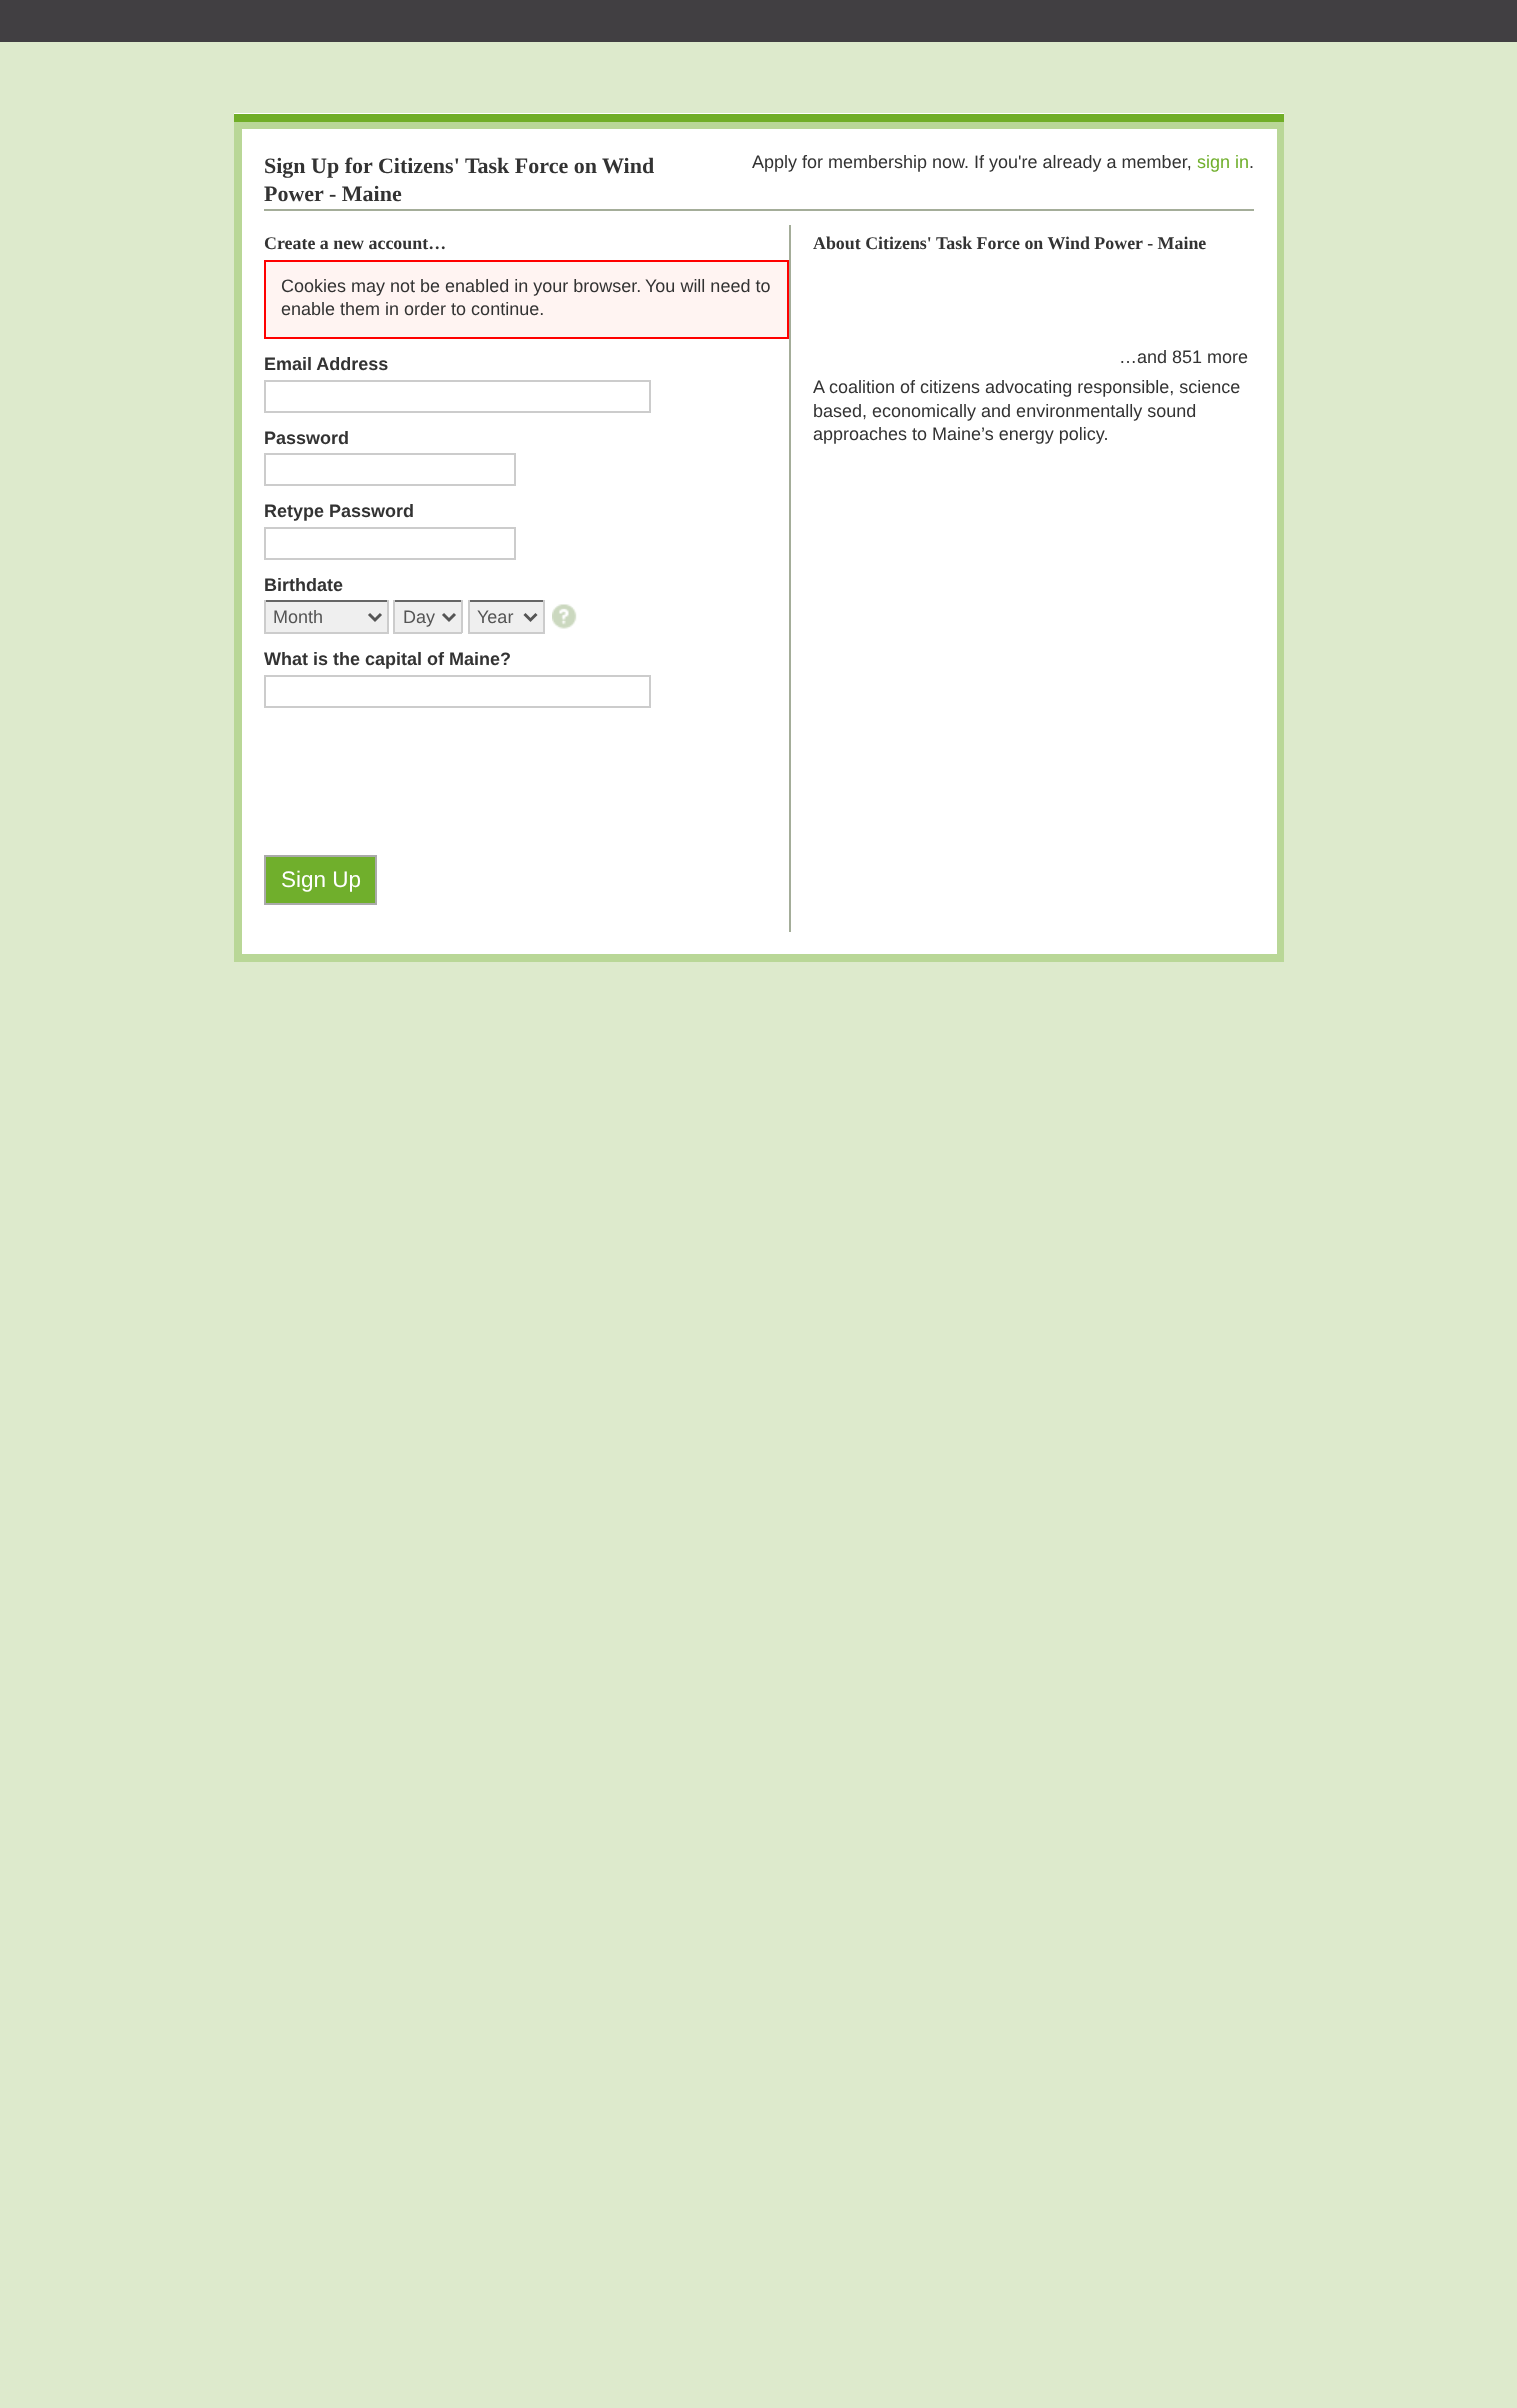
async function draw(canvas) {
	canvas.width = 1517;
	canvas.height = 2408;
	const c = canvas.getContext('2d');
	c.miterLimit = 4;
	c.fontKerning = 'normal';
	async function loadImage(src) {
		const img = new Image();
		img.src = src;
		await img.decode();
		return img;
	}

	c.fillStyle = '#ddeacc';
	c.fillRect(0, 0, 1517, 2408);
	for (const [x, y, w, h, color] of [
		[0, 0, 1517, 42, '#413f42'],
		[234, 113, 1050, 1, '#fff'],
		[234, 114, 1050, 8, '#70ae27'],
	]) {
		c.fillStyle = color;
		c.fillRect(x, y, w, h);
	}
	c.strokeStyle = '#b9d797';
	c.lineWidth = 8;
	c.strokeRect(238, 126, 1042, 832);
	c.fillStyle = '#fff';
	c.fillRect(242, 129, 1035, 825);
	c.fillStyle = '#a4ad99';
	c.fillRect(264, 209, 990, 2);
	c.font = 'bold 22px Liberation Serif';
	c.fillStyle = '#333';
	c.fillText('Sign Up for Citizens\' Task Force on Wind', 264, 173);
	c.fillText('Power - Maine', 264, 201);
	c.font = '18px Liberation Sans';
	c.fillText('Apply for membership now. If you\'re already a member,', 752, 168);
	c.fillStyle = '#70af2c';
	c.fillText('sign in', 1197, 168);
	c.fillStyle = '#333';
	c.fillText('.', 1249, 168);
	c.fillStyle = '#a4ad99';
	c.fillRect(789, 225, 2, 707);
	c.font = 'bold 17.9px Liberation Serif';
	c.fillStyle = '#333';
	c.fillText('Create a new account…', 264, 249);
	c.fillStyle = '#fff4f2';
	c.beginPath();
	c.rect(265, 261, 523, 77);
	c.fill();
	c.strokeStyle = '#f00';
	c.lineWidth = 2;
	c.stroke();
	c.font = '18px Liberation Sans';
	c.fillStyle = '#333';
	for (const [text, x, y] of [
		['Cookies may not be enabled in your browser.', 281, 292],
		['You will need to', 645, 292],
		['enable them in order to continue.', 281, 315],
	]) {
		c.fillText(text, x, y);
	}
	c.font = 'bold 18px Liberation Sans';
	c.fillText('Email Address', 264, 370);
	c.strokeStyle = '#ccc';
	c.strokeRect(265, 381, 385, 31);
	c.fillText('Password', 264, 444);
	c.strokeRect(265, 454, 250, 31);
	c.fillText('Retype Password', 264, 517);
	c.strokeRect(265, 528, 250, 31);
	c.fillText('Birthdate', 264, 591);
	for (const [x, y, w, h, color] of [
		[266, 602, 121, 30, '#efefef'],
		[264, 600, 125, 2, '#666'],
		[387, 600, 2, 33, '#ccc'],
		[264, 632, 125, 2, '#ccc'],
		[264, 600, 2, 33, '#ccc'],
	]) {
		c.fillStyle = color;
		c.fillRect(x, y, w, h);
	}
	c.beginPath();
	c.moveTo(369, 614);
	c.lineTo(375, 620);
	c.lineTo(381, 614);
	c.strokeStyle = '#555';
	c.lineWidth = 3;
	c.stroke();
	c.font = '18px Liberation Sans';
	c.fillStyle = '#555';
	c.fillText('Month', 273, 623);
	for (const [x, y, w, h, color] of [
		[395, 602, 66, 30, '#efefef'],
		[393, 600, 69, 2, '#666'],
		[461, 600, 2, 33, '#ccc'],
		[393, 632, 69, 2, '#ccc'],
		[393, 600, 2, 33, '#ccc'],
	]) {
		c.fillStyle = color;
		c.fillRect(x, y, w, h);
	}
	c.beginPath();
	c.moveTo(443, 614);
	c.lineTo(449, 620);
	c.lineTo(455, 614);
	c.stroke();
	c.fillStyle = '#555';
	c.fillText('Day', 403, 623);
	for (const [x, y, w, h, color] of [
		[470, 602, 73, 30, '#efefef'],
		[468, 600, 77, 2, '#666'],
		[543, 600, 2, 33, '#ccc'],
		[468, 632, 77, 2, '#ccc'],
		[468, 600, 2, 33, '#ccc'],
	]) {
		c.fillStyle = color;
		c.fillRect(x, y, w, h);
	}
	c.beginPath();
	c.moveTo(524.5, 614);
	c.lineTo(530.5, 620);
	c.lineTo(536.5, 614);
	c.stroke();
	c.fillStyle = '#555';
	c.fillText('Year', 477, 623);
	c.drawImage(await loadImage('img1.png'), 552, 604, 25, 25);
	c.font = 'bold 18px Liberation Sans';
	c.fillStyle = '#333';
	c.fillText('What is the capital of Maine?', 264, 665);
	c.strokeStyle = '#ccc';
	c.lineWidth = 2;
	c.strokeRect(265, 676, 385, 31);
	c.fillStyle = '#70af2c';
	c.beginPath();
	c.rect(265, 856, 111, 48);
	c.fill();
	c.strokeStyle = '#aaa';
	c.stroke();
	c.font = '22.5px Liberation Sans';
	c.fillStyle = '#fff';
	c.fillText('Sign Up', 281, 887);
	c.font = 'bold 17.9px Liberation Serif';
	c.fillStyle = '#333';
	c.fillText('About Citizens\' Task Force on Wind Power - Maine', 813, 249);
	c.font = '18px Liberation Sans';
	for (const [text, x, y] of [
		['…and 851 more', 1119, 363],
		['A coalition of citizens advocating responsible, science', 813, 393],
		['based, economically and environmentally sound', 813, 417],
		['approaches to Maine’s energy policy.', 813, 440],
	]) {
		c.fillText(text, x, y);
	}
}

draw(document.querySelector('canvas'));
